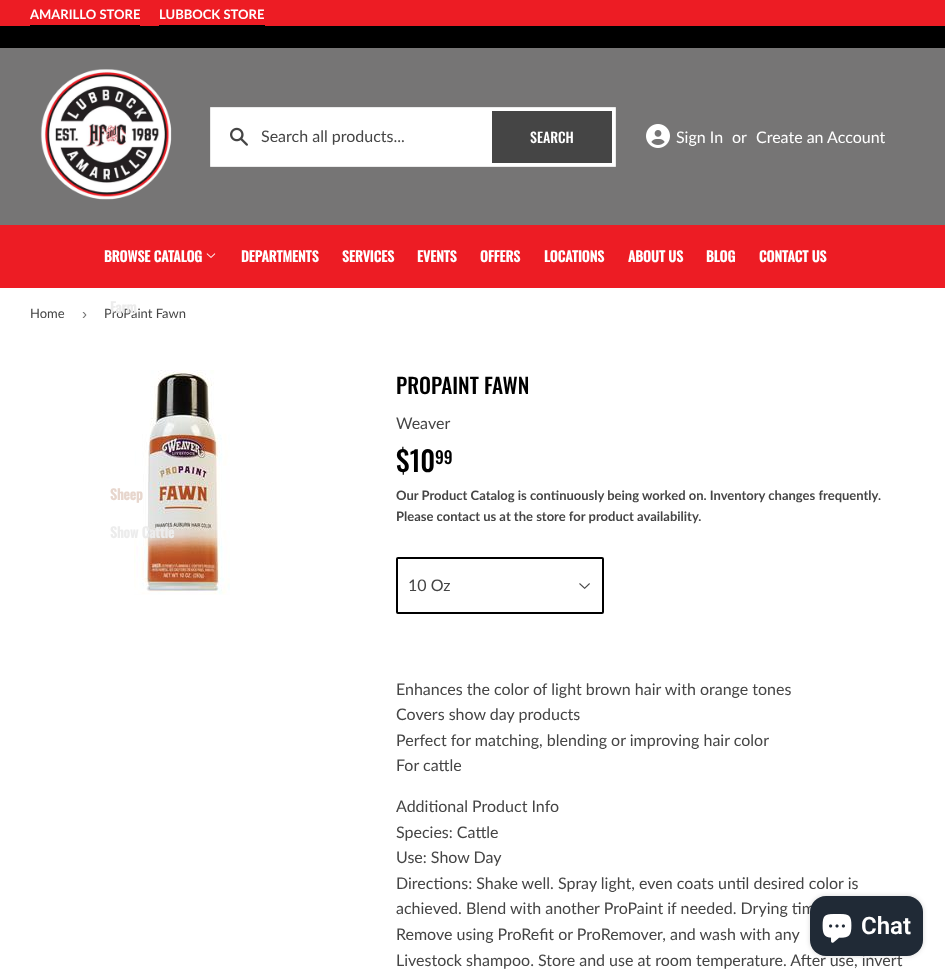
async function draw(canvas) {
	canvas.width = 945;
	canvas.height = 977;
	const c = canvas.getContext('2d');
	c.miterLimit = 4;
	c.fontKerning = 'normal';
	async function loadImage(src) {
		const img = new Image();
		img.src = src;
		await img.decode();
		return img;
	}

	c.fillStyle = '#fff';
	c.fillRect(0, 0, 945, 977);
	c.fillStyle = '#ed1c24';
	c.fillRect(0, 0, 945, 26);
	c.font = 'bold 13px Lato';
	c.fillStyle = '#fff';
	c.fillText('AMARILLO STORE', 30, 19);
	c.fillStyle = '#000';
	c.fillRect(30, 25, 110, 1);
	c.fillStyle = '#fff';
	c.fillText('LUBBOCK STORE', 159, 19);
	for (const [x, y, w, h, color] of [
		[159, 25, 106, 1, '#000'],
		[0, 26, 945, 22, '#000'],
		[0, 48, 945, 177, '#767575'],
	]) {
		c.fillStyle = color;
		c.fillRect(x, y, w, h);
	}
	c.drawImage(await loadImage('img1.png'), 40, 69, 132, 131);
	c.fillStyle = '#fff';
	c.beginPath();
	c.rect(210.5, 107.5, 405, 59);
	c.fill();
	c.strokeStyle = '#eaeaea';
	c.stroke();
	c.drawImage(await loadImage('img2.png'), 230, 127, 18, 19);
	c.font = '16px Lato';
	c.fillStyle = '#454545';
	c.fillText('Search all products...', 261, 142);
	c.fillRect(492, 111, 120, 52);
	c.font = '500 14px Oswald';
	c.fillStyle = '#fff';
	c.fillText('SEARCH', 530, 143);
	c.drawImage(await loadImage('img3.png'), 646, 124, 24, 24);
	c.font = '16px Lato';
	for (const [text, x, y] of [
		['Sign In', 676, 143],
		['or', 732, 143],
		['Create an Account', 756, 143],
	]) {
		c.fillText(text, x, y);
	}
	c.fillStyle = '#ed1c24';
	c.fillRect(0, 225, 945, 63);
	c.font = 'bold 14px Oswald';
	c.fillStyle = '#fff';
	c.fillText('BROWSE CATALOG', 104, 262);
	c.drawImage(await loadImage('img4.png'), 206, 253, 10, 5);
	c.font = '13px Lato';
	c.fillStyle = '#454545';
	c.fillText('ProPaint Fawn', 104, 318);
	c.font = 'bold 14px Oswald';
	c.fillStyle = '#ececec';
	c.fillText('Farm', 110, 313);
	c.drawImage(await loadImage('img5.png'), 134, 370, 96, 225);
	c.fillStyle = '#e7d6cd';
	c.fillText('Sheep', 110, 500);
	c.fillStyle = '#ececec';
	c.fillText('Show Cattle', 110, 538);
	c.fillStyle = '#fff';
	for (const [text, x, y] of [
		['DEPARTMENTS', 241, 262],
		['SERVICES', 342, 262],
		['EVENTS', 417, 262],
		['OFFERS', 480, 262],
		['LOCATIONS', 544, 262],
		['ABOUT US', 628, 262],
		['BLOG', 706, 262],
		['CONTACT US', 759, 262],
	]) {
		c.fillText(text, x, y);
	}
	c.font = '13px Lato';
	c.fillStyle = '#454545';
	c.fillText('Home', 30, 318);
	c.font = '15px Liberation Sans';
	c.fillStyle = '#767676';
	c.fillText('›', 82, 319);
	c.font = '500 21.25px Oswald';
	c.fillStyle = '#000';
	c.fillText('PROPAINT FAWN', 396, 394);
	c.font = '16px Lato';
	c.fillStyle = '#454545';
	c.fillText('Weaver', 396, 429);
	c.font = '500 28px Oswald';
	c.fillStyle = '#000';
	c.fillText('$10', 396, 472);
	c.font = '500 17px Oswald';
	c.fillText('99', 435, 464);
	c.font = 'bold 13px Lato';
	c.fillStyle = '#454545';
	c.fillText('Our Product Catalog is continuously being worked on. Inventory changes frequently.', 396, 500);
	c.fillText('Please contact us at the store for product availability.', 396, 521);
	c.drawImage(await loadImage('img6.png'), 579, 583, 11, 6);
	c.beginPath();
	c.roundRect(397, 558, 206, 55, 1);
	c.strokeStyle = '#000';
	c.lineWidth = 2;
	c.stroke();
	c.font = '16px Lato';
	for (const [text, x, y] of [
		['10 Oz', 408, 591],
		['Enhances the color of light brown hair with orange tones', 396, 695],
		['Covers show day products', 396, 720],
		['Perfect for matching, blending or improving hair color', 396, 746],
		['For cattle', 396, 771],
		['Additional Product Info', 396, 812],
		['Species: Cattle', 396, 838],
		['Use: Show Day', 396, 863],
		['Directions: Shake well. Spray light, even coats until desired color is', 396, 889],
		['achieved. Blend with another ProPaint if needed. Drying tim', 396, 914],
		['Remove using ProRefit or ProRemover, and wash with any', 396, 940],
		['Livestock shampoo. Store and use at room temperature. After use, invert', 396, 966],
	]) {
		c.fillText(text, x, y);
	}
	c.fillStyle = '#00000026';
	c.filter = 'blur(2.5px)';
	c.beginPath();
	c.roundRect(810, 896, 113, 60, 16);
	c.fill();
	c.filter = 'none';
	c.fillStyle = '#202a36';
	c.beginPath();
	c.roundRect(810, 896, 113, 60, 16);
	c.fill();
	c.drawImage(await loadImage('img7.png'), 822, 914, 30, 29);
	c.font = '600 24px Roboto';
	c.fillStyle = '#fff';
	c.fillText('Chat', 861, 934);
}

draw(document.querySelector('canvas'));
